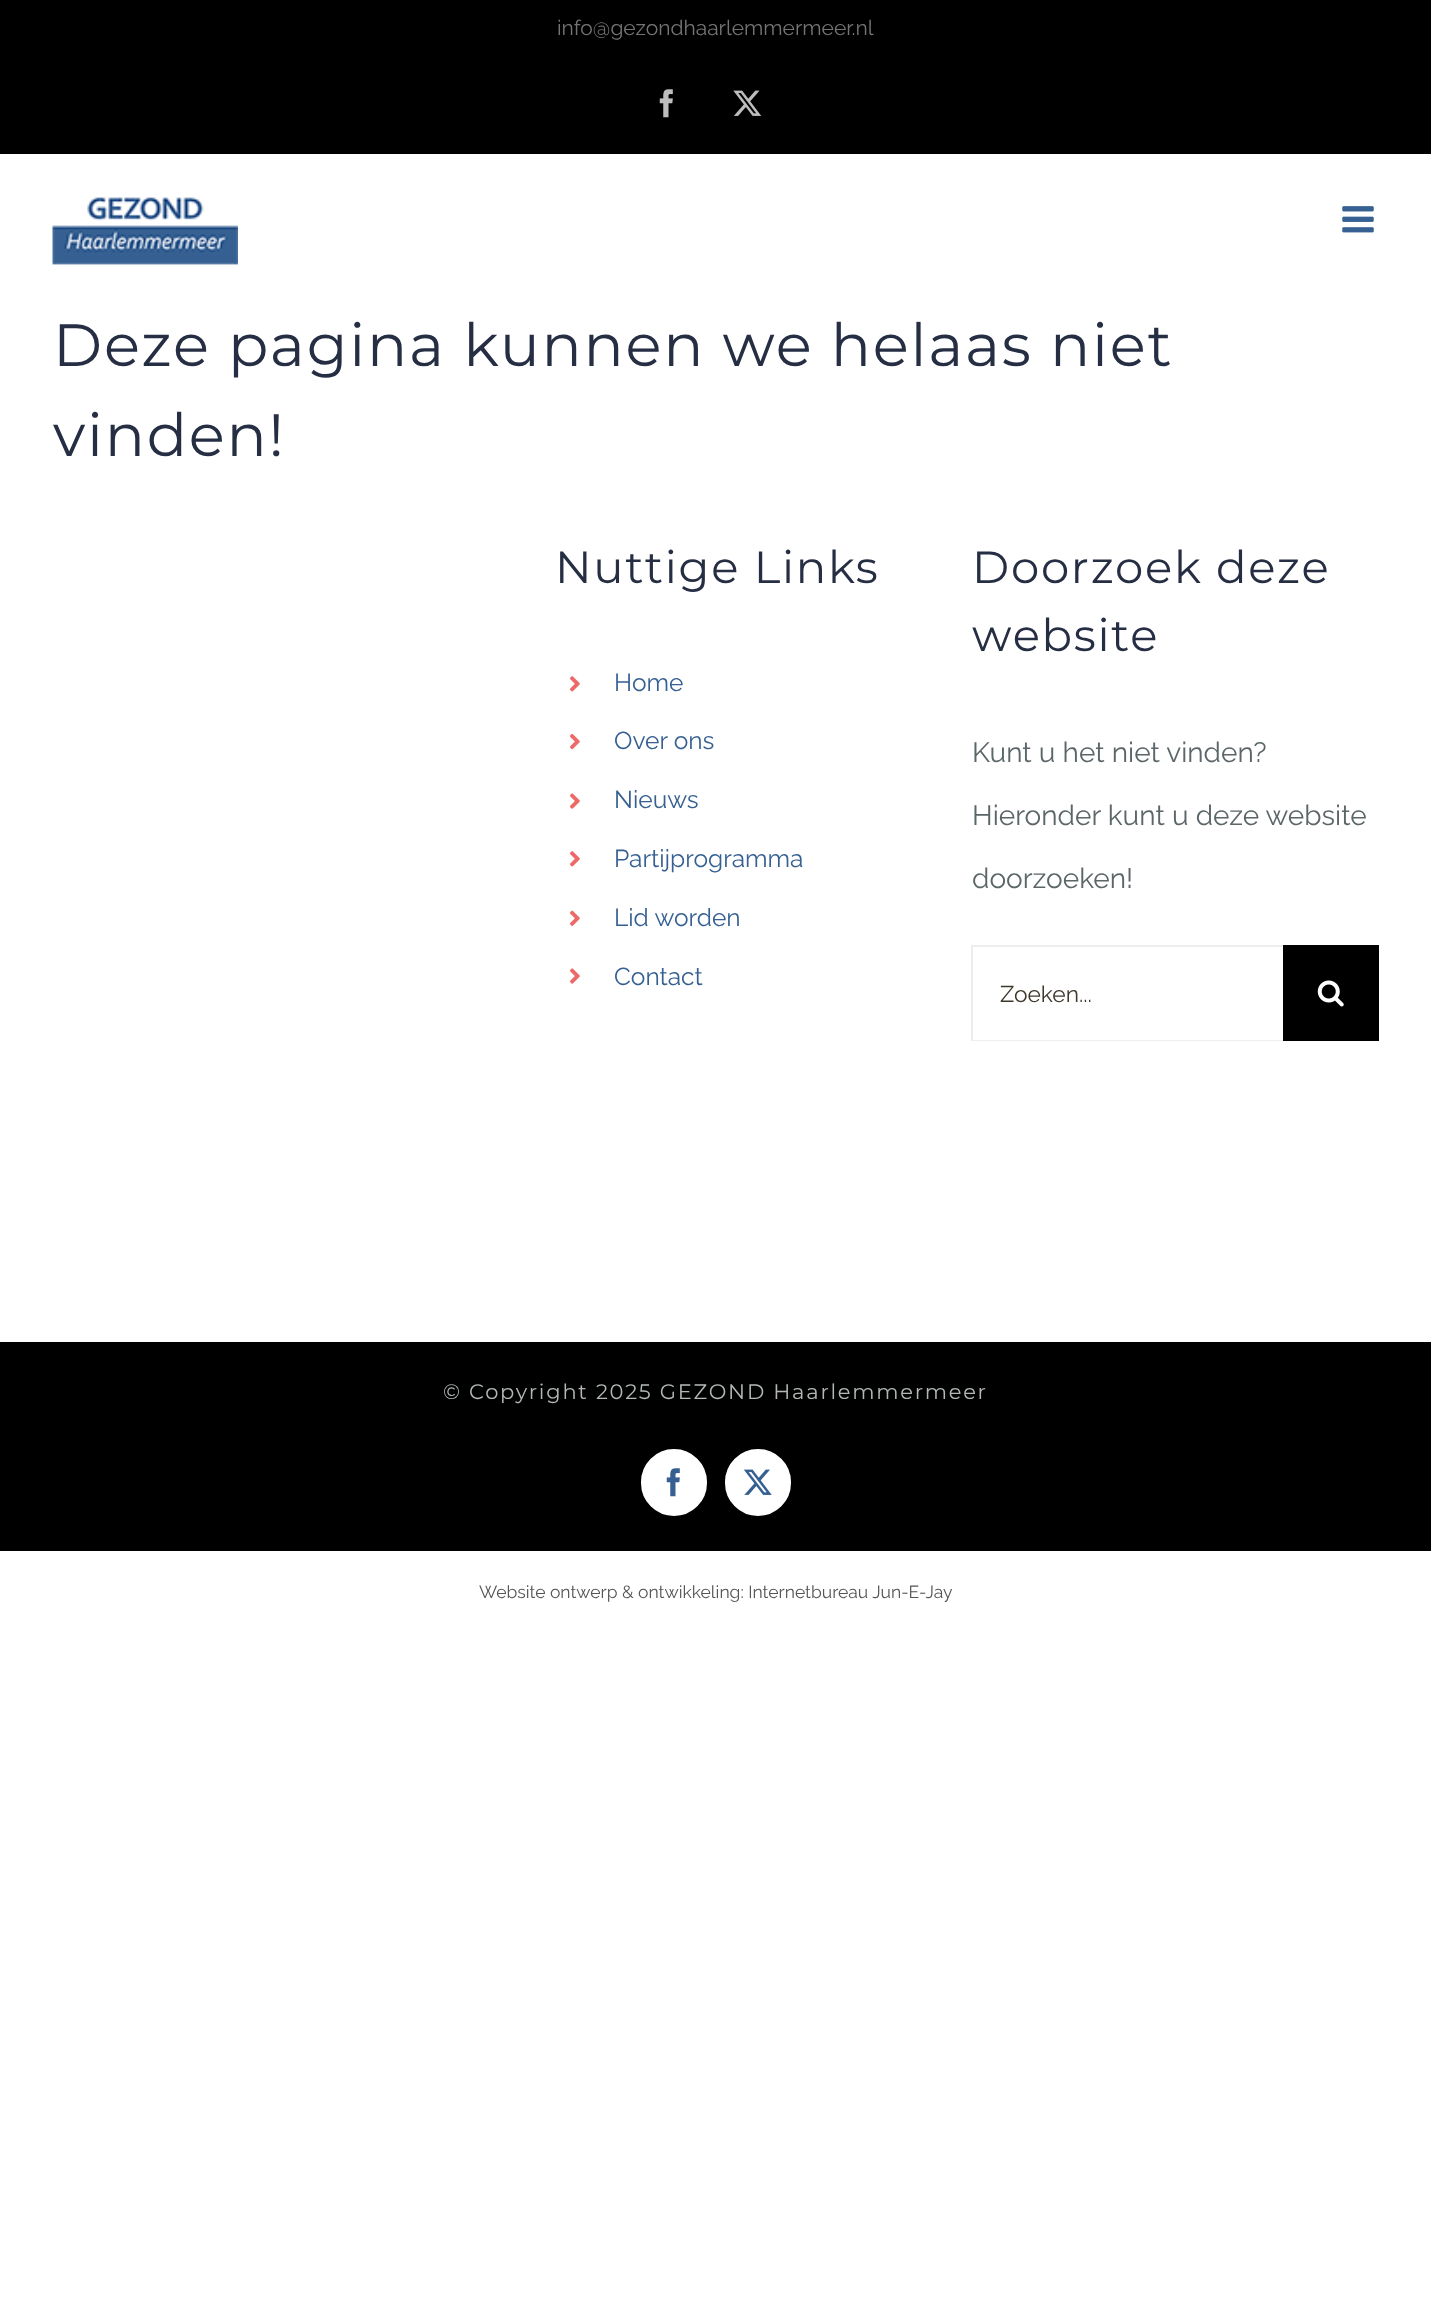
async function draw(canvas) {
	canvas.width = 1431;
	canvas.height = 2316;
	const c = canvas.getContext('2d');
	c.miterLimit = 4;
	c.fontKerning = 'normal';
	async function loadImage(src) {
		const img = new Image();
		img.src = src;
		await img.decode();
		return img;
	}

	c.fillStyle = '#fff';
	c.fillRect(0, 0, 1431, 2316);
	c.fillStyle = '#000';
	c.fillRect(0, 0, 1431, 154);
	c.font = '21px Raleway';
	c.fillStyle = '#747474';
	c.fillText('info@gezondhaarlemmermeer.nl', 557, 35);
	c.drawImage(await loadImage('img1.png'), 659, 89, 14, 29);
	c.drawImage(await loadImage('img2.png'), 733, 90, 29, 26);
	c.drawImage(await loadImage('img3.png'), 52, 197, 186, 68);
	c.drawImage(await loadImage('img4.png'), 1342, 206, 32, 27);
	c.letterSpacing = '1.75px';
	c.font = '59.5px Montserrat';
	c.fillStyle = '#262e44';
	c.fillText('Deze pagina kunnen we helaas niet', 53, 366);
	c.fillText('vinden!', 53, 456);
	c.font = '45px Montserrat';
	c.fillText('Nuttige Links', 555, 583);
	c.drawImage(await loadImage('img5.png'), 570, 676, 10, 16);
	c.letterSpacing = '0px';
	c.font = '24.5px Raleway';
	c.fillStyle = '#366092';
	c.fillText('Home', 614, 691);
	c.drawImage(await loadImage('img6.png'), 570, 733, 10, 17);
	c.fillText('Over ons', 614, 749);
	c.drawImage(await loadImage('img7.png'), 570, 793, 10, 16);
	c.fillText('Nieuws', 614, 808);
	c.drawImage(await loadImage('img5.png'), 570, 851, 10, 16);
	c.fillText('Partijprogramma', 614, 867);
	c.drawImage(await loadImage('img8.png'), 570, 910, 10, 16);
	c.fillText('Lid worden', 614, 926);
	c.drawImage(await loadImage('img7.png'), 570, 968, 10, 16);
	c.fillText('Contact', 614, 985);
	c.letterSpacing = '1.75px';
	c.font = '45px Montserrat';
	c.fillStyle = '#262e44';
	c.fillText('Doorzoek deze', 972, 583);
	c.fillText('website', 972, 651);
	c.letterSpacing = '0px';
	c.font = '28px Raleway';
	c.fillStyle = '#5c6668';
	for (const [text, x, y] of [
		['Kunt u het niet vinden?', 972, 762],
		['Hieronder kunt u deze website', 972, 825],
		['doorzoeken!', 972, 888],
	]) {
		c.fillText(text, x, y);
	}
	c.fillStyle = '#eee';
	c.beginPath();
	c.moveTo(971, 945);
	c.lineTo(1283, 945);
	c.lineTo(1283, 947);
	c.lineTo(973, 947);
	c.closePath();
	c.fill();
	c.beginPath();
	c.moveTo(1283, 1041);
	c.lineTo(971, 1041);
	c.lineTo(973, 1040);
	c.lineTo(1283, 1040);
	c.closePath();
	c.fill();
	c.fillStyle = '#dcdcdc80';
	c.beginPath();
	c.moveTo(971, 1041);
	c.lineTo(971, 945);
	c.lineTo(973, 947);
	c.lineTo(973, 1040);
	c.closePath();
	c.fill();
	c.font = '22.75px Raleway';
	c.fillStyle = '#3e372d';
	c.fillText('Zoeken...', 1000, 1002);
	c.fillStyle = '#000';
	c.fillRect(1283, 945, 96, 96);
	c.drawImage(await loadImage('img9.png'), 1317, 980, 27, 27);
	c.fillRect(0, 1342, 1431, 209);
	c.letterSpacing = '1.75px';
	c.font = '21px Montserrat';
	c.fillStyle = '#b2b7b8';
	c.fillText('© Copyright 2025 GEZOND Haarlemmermeer', 443, 1399);
	c.fillStyle = '#fff';
	c.beginPath();
	c.roundRect(642, 1450, 64, 65, 32);
	c.fill();
	c.strokeStyle = '#fff';
	c.lineWidth = 2;
	c.stroke();
	c.drawImage(await loadImage('img10.png'), 666, 1468, 14, 29);
	c.beginPath();
	c.roundRect(726, 1450, 64, 65, 32);
	c.fill();
	c.stroke();
	c.drawImage(await loadImage('img11.png'), 743, 1469, 29, 26);
	c.letterSpacing = '0px';
	c.font = '17.5px Raleway';
	c.fillStyle = '#555';
	c.fillText('Website ontwerp & ontwikkeling: Internetbureau Jun-E-Jay', 479, 1598);
}

draw(document.querySelector('canvas'));
